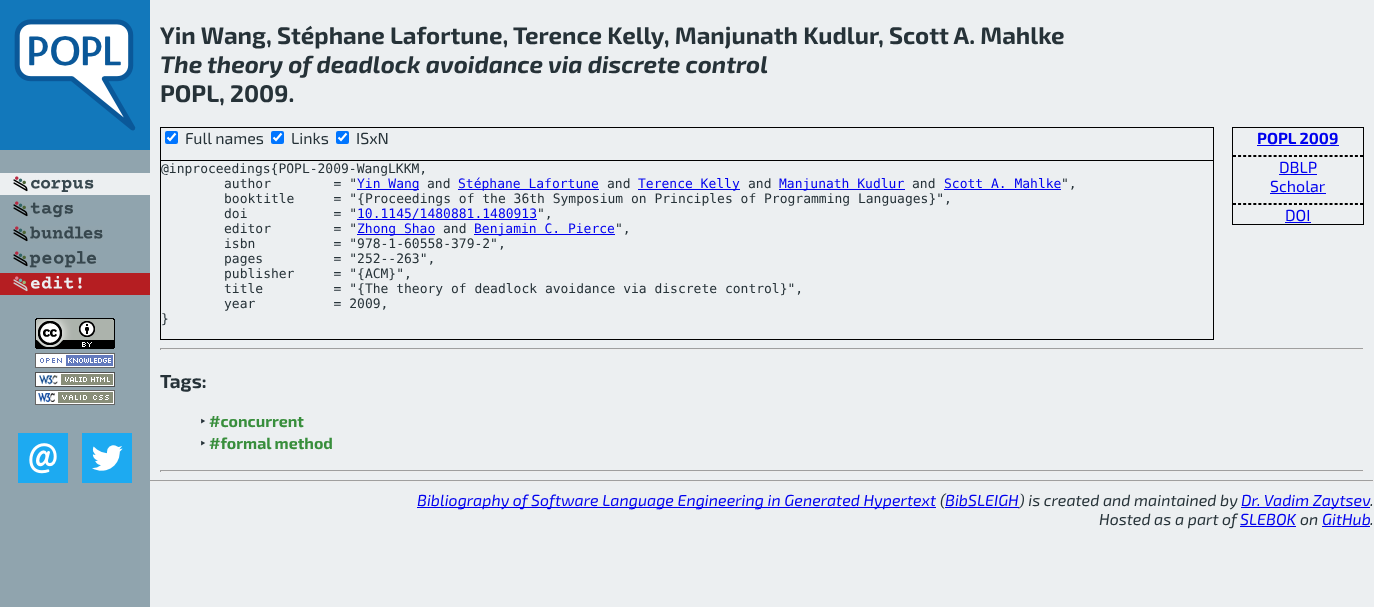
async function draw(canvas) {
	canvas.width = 1374;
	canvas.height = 607;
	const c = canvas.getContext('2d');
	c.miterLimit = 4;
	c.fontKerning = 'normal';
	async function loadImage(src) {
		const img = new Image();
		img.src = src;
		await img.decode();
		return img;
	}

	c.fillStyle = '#eceff1';
	c.fillRect(0, 0, 1374, 607);
	c.fillStyle = '#90a4ae';
	c.fillRect(0, 150, 150, 457);
	c.drawImage(await loadImage('img1.png'), 0, 0, 150, 150);
	c.drawImage(await loadImage('img2.png'), 0, 173, 150, 22);
	c.drawImage(await loadImage('img3.png'), 13, 201, 60, 17);
	c.drawImage(await loadImage('img4.png'), 13, 226, 90, 16);
	c.drawImage(await loadImage('img5.png'), 13, 251, 84, 17);
	c.drawImage(await loadImage('img6.png'), 0, 273, 150, 22);
	c.drawImage(await loadImage('img7.png'), 35, 318, 80, 31);
	c.drawImage(await loadImage('img8.png'), 35, 353, 80, 15);
	c.drawImage(await loadImage('img9.png'), 35, 372, 80, 15);
	c.drawImage(await loadImage('img10.png'), 35, 390, 80, 15);
	c.drawImage(await loadImage('img11.png'), 18, 433, 50, 50);
	c.drawImage(await loadImage('img12.png'), 82, 433, 50, 50);
	c.font = 'bold 24px "Exo 2"';
	c.fillStyle = '#263238';
	c.fillText('Yin Wang, Stéphane Lafortune, Terence Kelly, Manjunath Kudlur, Scott A. Mahlke', 160, 44);
	c.font = 'italic bold 24px "Exo 2"';
	for (const [text, x, y] of [
		['The', 160, 73],
		['theory of deadlock avoidance', 207, 73],
		['via discrete control', 548, 73],
	]) {
		c.fillText(text, x, y);
	}
	c.font = 'bold 24px "Exo 2"';
	c.fillText('POPL, 2009.', 160, 102);
	c.strokeStyle = '#000';
	c.strokeRect(160.5, 127.5, 1053, 212);
	c.fillStyle = '#0075ff';
	c.beginPath();
	c.roundRect(165, 131, 13, 13, 2);
	c.fill();
	c.beginPath();
	c.moveTo(167.5, 137.5);
	c.lineTo(170, 140);
	c.lineTo(175.5, 133.5);
	c.strokeStyle = '#fff';
	c.lineWidth = 2.1;
	c.stroke();
	c.font = '16px "Exo 2"';
	c.fillStyle = '#263238';
	c.fillText('Full names', 185, 144);
	c.fillStyle = '#0075ff';
	c.beginPath();
	c.roundRect(271, 131, 13, 13, 2);
	c.fill();
	c.beginPath();
	c.moveTo(273.5, 137.5);
	c.lineTo(276, 140);
	c.lineTo(281.5, 133.5);
	c.stroke();
	c.fillStyle = '#263238';
	c.fillText('Links', 291, 144);
	c.fillStyle = '#0075ff';
	c.beginPath();
	c.roundRect(336, 131, 13, 13, 2);
	c.fill();
	c.beginPath();
	c.moveTo(338.5, 137.5);
	c.lineTo(341, 140);
	c.lineTo(346.5, 133.5);
	c.stroke();
	c.fillStyle = '#263238';
	c.fillText('ISxN', 356, 144);
	c.fillStyle = '#000';
	c.fillRect(161, 160, 1052, 1);
	c.font = '13px DejaVu Sans Mono';
	c.fillStyle = '#263238';
	c.fillText('@inproceedings{POPL-2009-WangLKKM,', 161, 173);
	c.fillText('author        = "', 224, 188);
	c.fillStyle = '#00e';
	c.fillRect(357, 189, 62, 1);
	c.fillText('Yin Wang', 357, 188);
	c.fillStyle = '#263238';
	c.fillText('and', 427, 188);
	c.fillStyle = '#00e';
	c.fillRect(458, 189, 141, 1);
	c.fillText('Stéphane Lafortune', 458, 188);
	c.fillStyle = '#263238';
	c.fillText('and', 607, 188);
	c.fillStyle = '#00e';
	c.fillRect(638, 189, 102, 1);
	c.fillText('Terence Kelly', 638, 188);
	c.fillStyle = '#263238';
	c.fillText('and', 748, 188);
	c.fillStyle = '#00e';
	c.fillRect(779, 189, 126, 1);
	c.fillText('Manjunath Kudlur', 779, 188);
	c.fillStyle = '#263238';
	c.fillText('and', 912, 188);
	c.fillStyle = '#00e';
	c.fillText('Scott A. Mahlke', 944, 188);
	c.fillRect(944, 189, 117, 1);
	c.fillStyle = '#263238';
	for (const [text, x, y] of [
		['",', 1061, 188],
		['booktitle     = "{Proceedings of the 36th Symposium on Principles of Programming Languages}",', 224, 203],
		['doi           = "', 224, 218],
	]) {
		c.fillText(text, x, y);
	}
	c.fillStyle = '#00e';
	c.fillRect(357, 219, 180, 1);
	c.fillText('10.1145/1480881.1480913', 357, 218);
	c.fillStyle = '#263238';
	c.fillText('",', 537, 218);
	c.fillText('editor        = "', 224, 233);
	c.fillStyle = '#00e';
	c.fillRect(357, 234, 78, 1);
	c.fillText('Zhong Shao', 357, 233);
	c.fillStyle = '#263238';
	c.fillText('and', 443, 233);
	c.fillStyle = '#00e';
	c.fillRect(474, 234, 141, 1);
	c.fillText('Benjamin C. Pierce', 474, 233);
	c.fillStyle = '#263238';
	for (const [text, x, y] of [
		['",', 615, 233],
		['isbn          = "978-1-60558-379-2",', 224, 248],
		['pages         = "252--263",', 224, 263],
		['publisher     = "{ACM}",', 224, 278],
		['title         = "{The theory of deadlock avoidance via discrete control}",', 224, 293],
		['year          = 2009,', 224, 308],
		['}', 161, 323],
	]) {
		c.fillText(text, x, y);
	}
	c.strokeStyle = '#000';
	c.lineWidth = 1;
	c.strokeRect(1232.5, 127.5, 131, 97);
	c.font = 'bold 16px "Exo 2"';
	c.fillStyle = '#00e';
	c.fillText('POPL 2009', 1257, 144);
	c.fillRect(1257, 145, 82, 1);
	c.beginPath();
	c.moveTo(1233, 155.5);
	c.lineTo(1363, 155.5);
	c.setLineDash([3, 2.08]);
	c.stroke();
	c.fillStyle = '#000';
	c.fillRect(1362, 155, 1, 2);
	c.beginPath();
	c.moveTo(1233, 156.5);
	c.lineTo(1363, 156.5);
	c.stroke();
	c.font = '16px "Exo 2"';
	c.fillStyle = '#00e';
	c.fillText('DBLP', 1279, 173);
	c.fillRect(1279, 174, 38, 1);
	c.fillText('Scholar', 1270, 192);
	c.fillRect(1270, 193, 56, 1);
	c.beginPath();
	c.moveTo(1233, 203.5);
	c.lineTo(1363, 203.5);
	c.stroke();
	c.fillStyle = '#000';
	c.fillRect(1362, 203, 1, 2);
	c.beginPath();
	c.moveTo(1233, 204.5);
	c.lineTo(1363, 204.5);
	c.stroke();
	c.fillStyle = '#00e';
	c.fillText('DOI', 1285, 221);
	for (const [x, y, w, h, color] of [
		[1285, 222, 26, 1, '#00e'],
		[160, 348, 1204, 1, '#9f9f9f'],
		[1363, 348, 1, 2, '#eee'],
		[160, 349, 1204, 1, '#eee'],
		[160, 348, 1, 2, '#9f9f9f'],
	]) {
		c.fillStyle = color;
		c.fillRect(x, y, w, h);
	}
	c.font = 'bold 19px "Exo 2"';
	c.fillStyle = '#263238';
	c.fillText('Tags:', 160, 388);
	c.font = '16px Noto Sans';
	c.fillText('‣', 200, 427);
	c.font = 'bold 16px "Exo 2"';
	c.fillStyle = '#388e3c';
	c.fillText('#concurrent', 209, 427);
	c.font = '16px Noto Sans';
	c.fillStyle = '#263238';
	c.fillText('‣', 200, 449);
	c.font = 'bold 16px "Exo 2"';
	c.fillStyle = '#388e3c';
	c.fillText('#formal method', 209, 449);
	for (const [x, y, w, h, color] of [
		[160, 470, 1204, 1, '#9f9f9f'],
		[1363, 470, 1, 2, '#eee'],
		[160, 471, 1204, 1, '#eee'],
		[160, 470, 1, 2, '#9f9f9f'],
		[150, 480, 1224, 1, '#9f9f9f'],
		[1373, 480, 1, 2, '#eee'],
		[150, 481, 1224, 1, '#eee'],
		[417, 507, 519, 1, '#00e'],
	]) {
		c.fillStyle = color;
		c.fillRect(x, y, w, h);
	}
	c.font = 'italic 16px "Exo 2"';
	c.fillText('Bibliography of Software Language Engineering in Generated Hypertext', 417, 506);
	c.fillStyle = '#263238';
	c.fillText('(', 940, 506);
	c.fillStyle = '#00e';
	c.fillText('BibSLEIGH', 945, 506);
	c.fillRect(945, 507, 74, 1);
	c.fillStyle = '#263238';
	c.fillText(') is created and maintained by', 1019, 506);
	c.fillStyle = '#00e';
	c.fillRect(1241, 507, 129, 1);
	c.fillText('Dr. Vadim Zaytsev', 1241, 506);
	c.fillStyle = '#263238';
	c.fillText('.', 1370, 506);
	c.fillText('Hosted as a part of', 1099, 525);
	c.fillStyle = '#00e';
	c.fillRect(1240, 526, 56, 1);
	c.fillText('SLEBOK', 1240, 525);
	c.fillStyle = '#263238';
	c.fillText('on', 1300, 525);
	c.fillStyle = '#00e';
	c.fillText('GitHub', 1322, 525);
	c.fillStyle = '#263238';
	c.fillText('.', 1370, 525);
	c.fillStyle = '#00e';
	c.fillRect(1322, 526, 48, 1);
}

draw(document.querySelector('canvas'));
